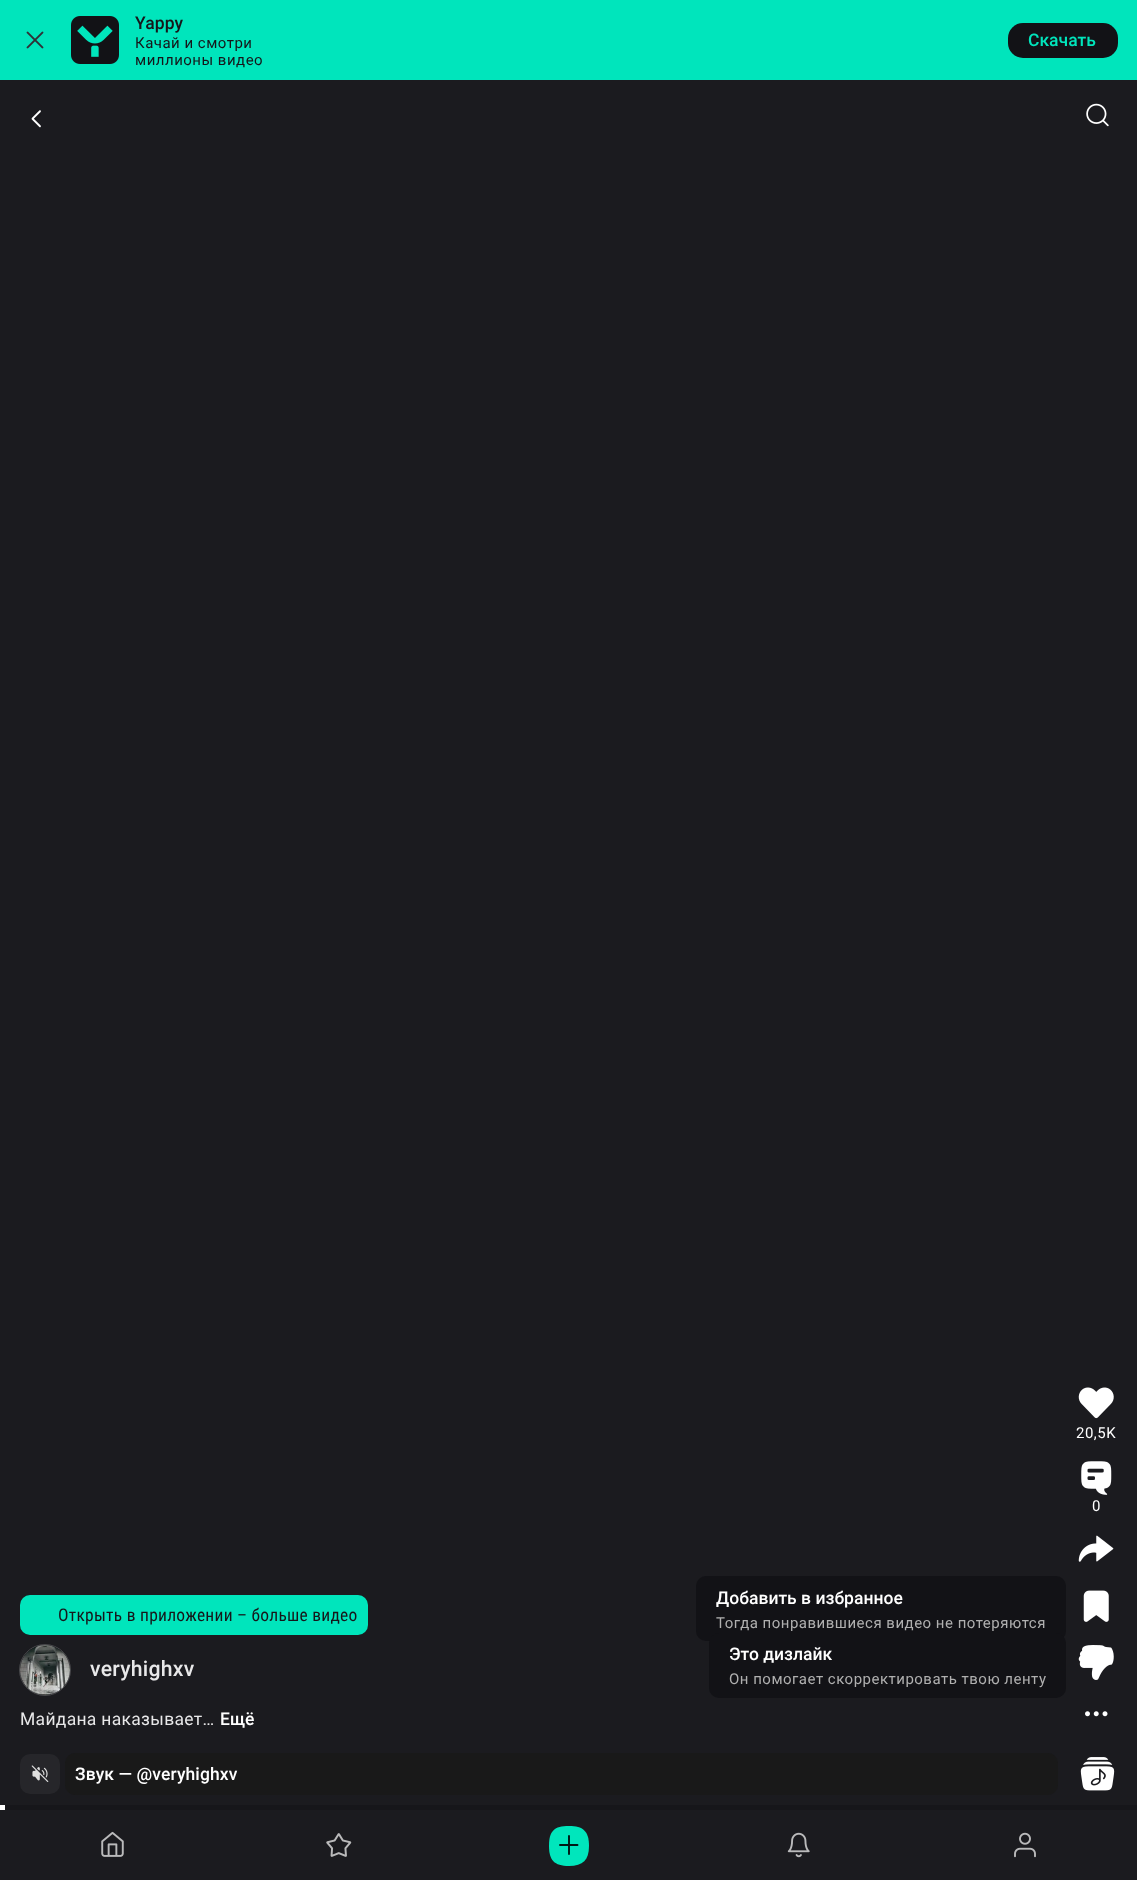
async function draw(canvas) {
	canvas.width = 1137;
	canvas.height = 1880;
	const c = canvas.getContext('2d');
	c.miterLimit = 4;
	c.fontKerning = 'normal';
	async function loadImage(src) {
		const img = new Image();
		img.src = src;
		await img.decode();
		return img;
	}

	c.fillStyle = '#1b1b1f';
	c.fillRect(0, 0, 1137, 1880);
	c.fillStyle = '#00e5bc';
	c.fillRect(0, 0, 1137, 80);
	c.drawImage(await loadImage('img1.png'), 26, 31, 18, 18);
	c.drawImage(await loadImage('img2.png'), 71, 16, 48, 48);
	c.letterSpacing = '0.1px';
	c.font = '500 17.5px Roboto';
	c.fillStyle = '#16161a';
	c.fillText('Yappy', 135, 29);
	c.letterSpacing = '0.5px';
	c.font = '15px Roboto';
	c.fillText('Качай и смотри', 135, 48);
	c.fillText('миллионы видео', 135, 65);
	c.fillStyle = '#121216';
	c.beginPath();
	c.roundRect(1008, 23, 110, 35, 15);
	c.fill();
	c.letterSpacing = '0px';
	c.font = '500 17.5px Roboto';
	c.fillStyle = '#00e5bc';
	c.fillText('Скачать', 1028, 46);
	c.drawImage(await loadImage('img3.png'), 31, 110, 10, 18);
	c.drawImage(await loadImage('img4.png'), 1086, 103, 23, 24);
	c.beginPath();
	c.roundRect(20, 1595, 348, 40, 10);
	c.fill();
	c.letterSpacing = '0.25px';
	c.font = '17.5px Roboto Condensed';
	c.fillStyle = '#16161a';
	c.fillText('Открыть в приложении – больше видео', 58, 1621);
	c.beginPath();
	c.arc(45, 1670, 25.5, 0, 2 * Math.PI);
	c.strokeStyle = '#49494c';
	c.stroke();
	c.fillStyle = '#1b1b1f';
	c.beginPath();
	c.arc(45, 1670, 25, 0, 2 * Math.PI);
	c.fill();
	c.drawImage(await loadImage('img5.png'), 20, 1645, 50, 50);
	c.font = '500 21.25px Roboto';
	c.fillStyle = '#e8e8e9';
	c.fillText('veryhighxv', 90, 1676);
	c.letterSpacing = '0.3px';
	c.font = '17.5px Roboto';
	c.fillText('Майдана наказывает…', 20, 1725);
	c.letterSpacing = '0.1px';
	c.font = '500 17.5px Roboto';
	c.fillStyle = '#fff';
	c.fillText('Ещё', 220, 1725);
	c.drawImage(await loadImage('img6.png'), 1078, 1387, 36, 32);
	c.letterSpacing = '0.5px';
	c.font = '15px Roboto';
	c.fillText('20,5K', 1076, 1438);
	c.drawImage(await loadImage('img7.png'), 1081, 1461, 31, 34);
	c.fillText('0', 1092, 1511);
	c.drawImage(await loadImage('img8.png'), 1078, 1535, 36, 27);
	c.fillStyle = '#121216';
	c.beginPath();
	c.roundRect(696, 1576, 370, 65, 10);
	c.fill();
	c.letterSpacing = '0px';
	c.font = '500 17.5px Roboto';
	c.fillStyle = '#fff';
	c.fillText('Добавить в избранное', 716, 1604);
	c.letterSpacing = '0.5px';
	c.font = '15px Roboto';
	c.fillStyle = '#b0b0b0';
	c.fillText('Тогда понравившиеся видео не потеряются', 716, 1628);
	c.drawImage(await loadImage('img9.png'), 1083, 1590, 26, 32);
	c.fillStyle = '#121216';
	c.beginPath();
	c.roundRect(709, 1633, 357, 65, 10);
	c.fill();
	c.letterSpacing = '0px';
	c.font = '500 17.5px Roboto';
	c.fillStyle = '#fff';
	c.fillText('Это дизлайк', 729, 1660);
	c.letterSpacing = '0.5px';
	c.font = '15px Roboto';
	c.fillStyle = '#b0b0b0';
	c.fillText('Он помогает скорректировать твою ленту', 729, 1684);
	c.drawImage(await loadImage('img10.png'), 1078, 1645, 36, 35);
	c.drawImage(await loadImage('img11.png'), 1085, 1711, 23, 6);
	c.fillStyle = '#26262a';
	c.beginPath();
	c.roundRect(20, 1754, 40, 40, 10);
	c.fill();
	c.drawImage(await loadImage('img12.png'), 31, 1765, 18, 17);
	c.fillStyle = '#191919';
	c.beginPath();
	c.roundRect(65, 1753, 993, 42, 10);
	c.fill();
	c.letterSpacing = '0.1px';
	c.font = '500 17.5px Roboto';
	c.fillStyle = '#fff';
	c.fillText('Звук — @veryhighxv', 75, 1780);
	c.drawImage(await loadImage('img13.png'), 1080, 1757, 35, 34);
	c.fillStyle = '#16161a';
	c.fillRect(0, 1805, 1137, 5);
	c.fillStyle = '#fff';
	c.fillRect(0, 1805, 5, 5);
	c.drawImage(await loadImage('img14.png'), 101, 1831, 23, 26);
	c.drawImage(await loadImage('img15.png'), 326, 1833, 26, 24);
	c.fillStyle = '#00e6bc';
	c.beginPath();
	c.moveTo(549, 1846);
	c.bezierCurveTo(549, 1831, 554, 1826, 569, 1826);
	c.bezierCurveTo(583, 1826, 589, 1831, 589, 1846);
	c.bezierCurveTo(589, 1860, 583, 1866, 569, 1866);
	c.bezierCurveTo(554, 1866, 549, 1860, 549, 1846);
	c.closePath();
	c.fill();
	c.beginPath();
	c.moveTo(569, 1836);
	c.lineTo(569, 1854);
	c.moveTo(560, 1845);
	c.lineTo(577.5, 1845);
	c.strokeStyle = '#001713';
	c.lineWidth = 1.9;
	c.lineCap = 'round';
	c.lineJoin = 'round';
	c.stroke();
	c.drawImage(await loadImage('img16.png'), 787, 1832, 23, 26);
	c.drawImage(await loadImage('img17.png'), 1014, 1832, 22, 26);
}

draw(document.querySelector('canvas'));
